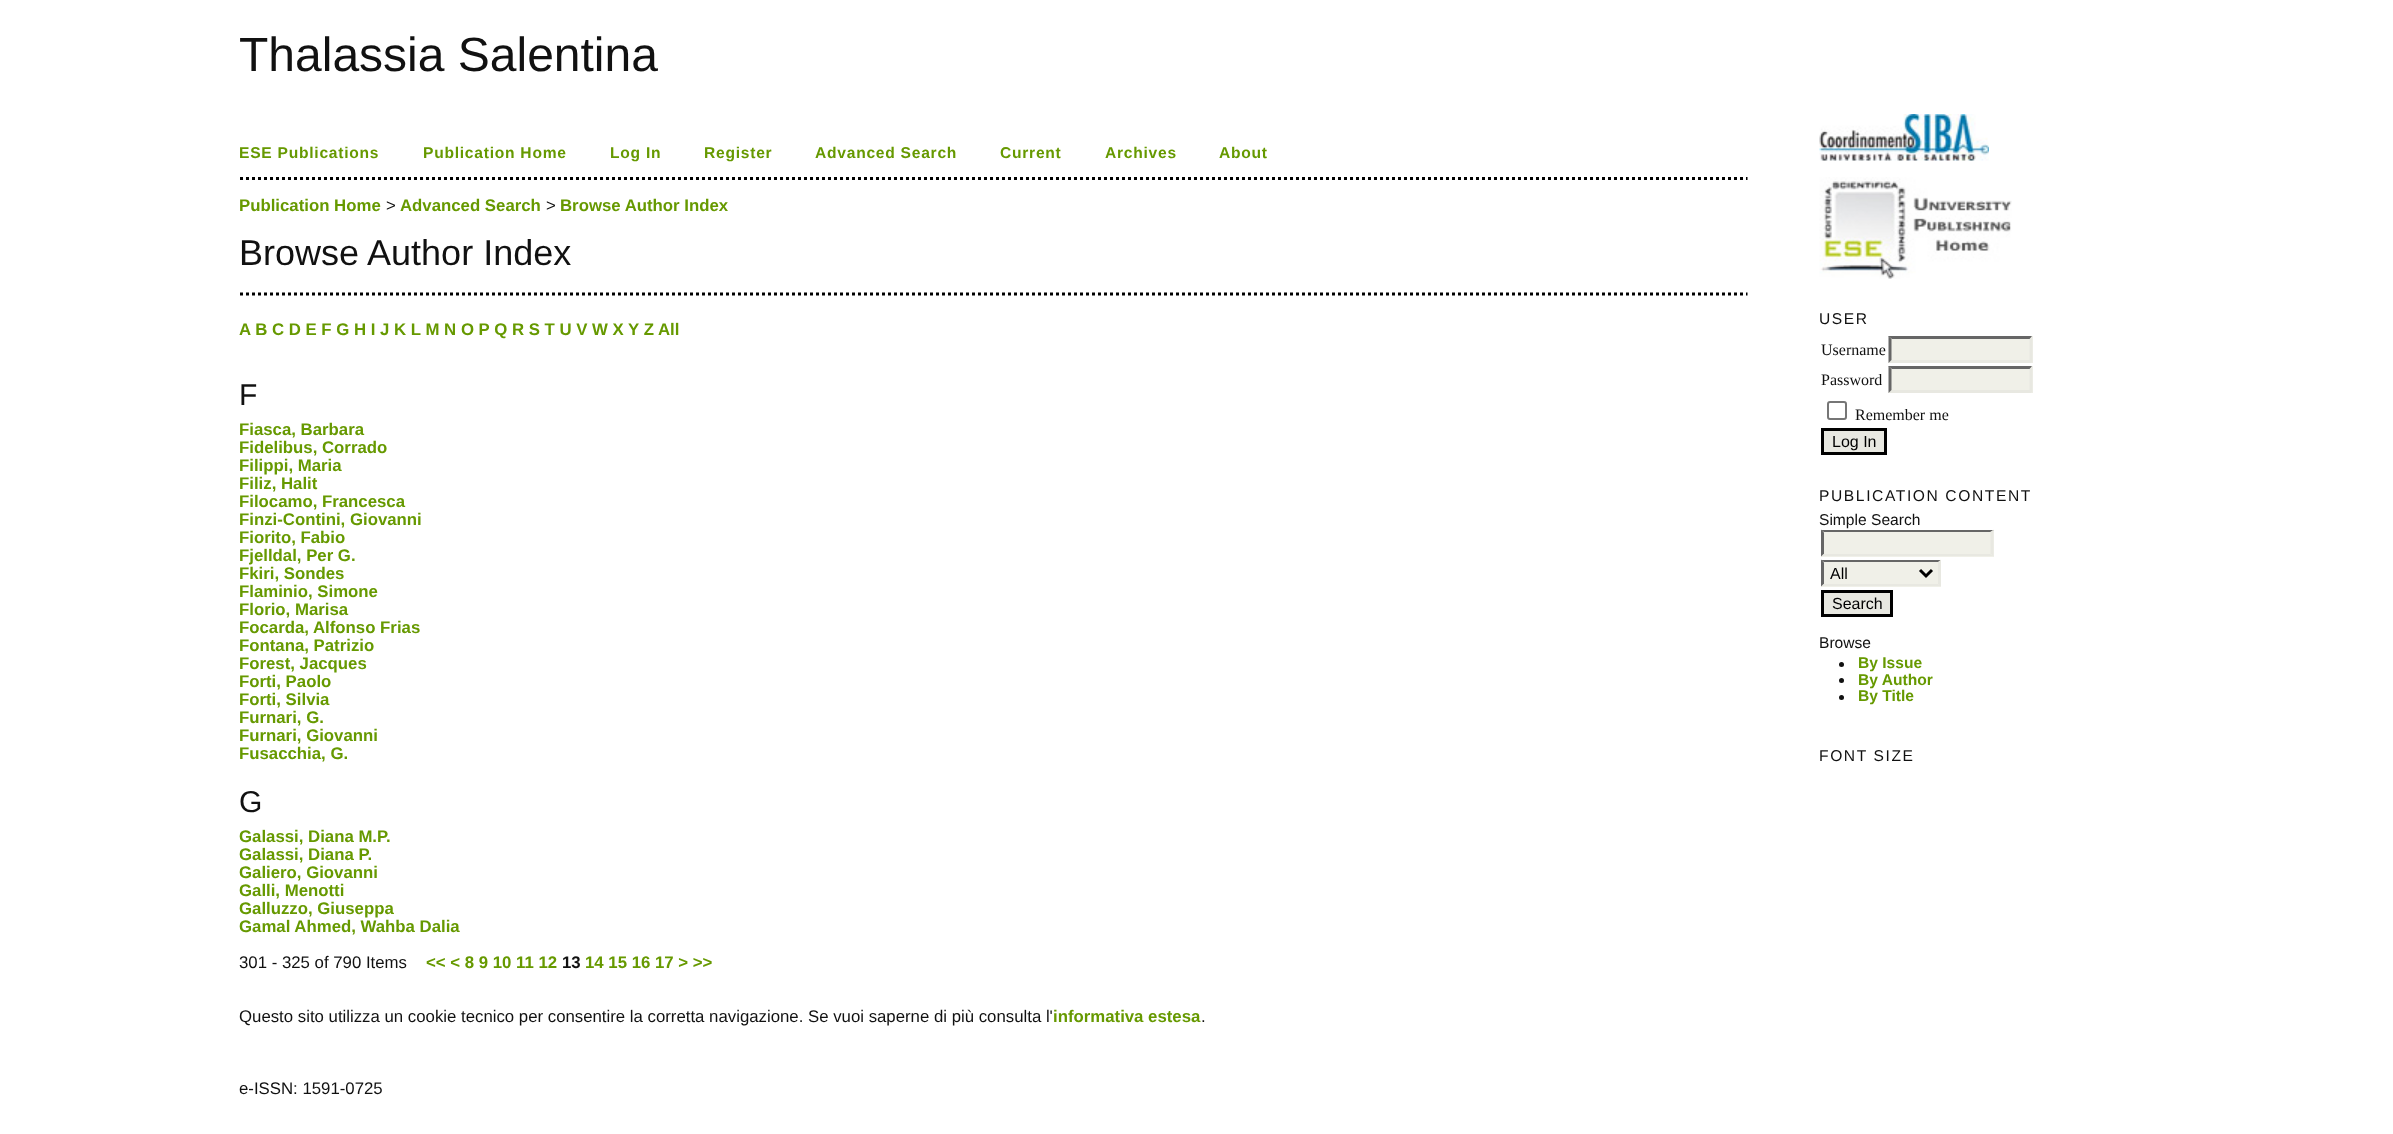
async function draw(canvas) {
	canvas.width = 2393;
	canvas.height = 1134;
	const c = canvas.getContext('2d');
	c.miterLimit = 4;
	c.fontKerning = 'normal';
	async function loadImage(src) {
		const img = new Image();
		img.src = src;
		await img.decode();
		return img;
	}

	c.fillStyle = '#fff';
	c.fillRect(0, 0, 2393, 1134);
	c.font = '48px Liberation Sans';
	c.fillStyle = '#111';
	c.fillText('Thalassia Salentina', 239, 71);
	c.beginPath();
	c.moveTo(240, 178.5);
	c.lineTo(1747.5, 178.5);
	c.strokeStyle = '#000';
	c.lineWidth = 3;
	c.setLineDash([3, 3]);
	c.stroke();
	c.letterSpacing = '0.75px';
	c.font = 'bold 15.6px Liberation Sans';
	c.fillStyle = '#690';
	for (const [text, x, y] of [
		['ESE Publications', 239, 158],
		['Publication Home', 423, 158],
		['Log In', 610, 158],
		['Register', 704, 158],
		['Advanced Search', 815, 158],
		['Current', 1000, 158],
		['Archives', 1105, 158],
		['About', 1219, 158],
	]) {
		c.fillText(text, x, y);
	}
	c.letterSpacing = '0px';
	c.font = 'bold 16.8px Liberation Sans';
	c.fillText('Publication Home', 239, 211);
	c.font = '16.8px Liberation Sans';
	c.fillStyle = '#111';
	c.fillText('>', 386, 211);
	c.font = 'bold 16.8px Liberation Sans';
	c.fillStyle = '#690';
	c.fillText('Advanced Search', 400, 211);
	c.font = '16.8px Liberation Sans';
	c.fillStyle = '#111';
	c.fillText('>', 546, 211);
	c.font = 'bold 16.8px Liberation Sans';
	c.fillStyle = '#690';
	c.fillText('Browse Author Index', 560, 211);
	c.font = '36px Liberation Sans';
	c.fillStyle = '#111';
	c.fillText('Browse Author Index', 239, 265);
	c.beginPath();
	c.moveTo(240, 294);
	c.lineTo(1747.5, 294);
	c.stroke();
	c.font = 'bold 16.8px Liberation Sans';
	c.fillStyle = '#690';
	c.fillText('A B C D E F G H I J K L M N O P Q R S T U V W X Y Z All', 239, 335);
	c.font = '30px Liberation Sans';
	c.fillStyle = '#111';
	c.fillText('F', 239, 405);
	c.font = 'bold 16.8px Liberation Sans';
	c.fillStyle = '#690';
	for (const [text, x, y] of [
		['Fiasca, Barbara', 239, 435],
		['Fidelibus, Corrado', 239, 453],
		['Filippi, Maria', 239, 471],
		['Filiz, Halit', 239, 489],
		['Filocamo, Francesca', 239, 507],
		['Finzi-Contini, Giovanni', 239, 525],
		['Fiorito, Fabio', 239, 543],
		['Fjelldal, Per G.', 239, 561],
		['Fkiri, Sondes', 239, 579],
		['Flaminio, Simone', 239, 597],
		['Florio, Marisa', 239, 615],
		['Focarda, Alfonso Frias', 239, 633],
		['Fontana, Patrizio', 239, 651],
		['Forest, Jacques', 239, 669],
		['Forti, Paolo', 239, 687],
		['Forti, Silvia', 239, 705],
		['Furnari, G.', 239, 723],
		['Furnari, Giovanni', 239, 741],
		['Fusacchia, G.', 239, 759],
	]) {
		c.fillText(text, x, y);
	}
	c.font = '30px Liberation Sans';
	c.fillStyle = '#111';
	c.fillText('G', 239, 812);
	c.font = 'bold 16.8px Liberation Sans';
	c.fillStyle = '#690';
	for (const [text, x, y] of [
		['Galassi, Diana M.P.', 239, 842],
		['Galassi, Diana P.', 239, 860],
		['Galiero, Giovanni', 239, 878],
		['Galli, Menotti', 239, 896],
		['Galluzzo, Giuseppa', 239, 914],
		['Gamal Ahmed, Wahba Dalia', 239, 932],
	]) {
		c.fillText(text, x, y);
	}
	c.font = '16.8px Liberation Sans';
	c.fillStyle = '#111';
	c.fillText('301 - 325 of 790 Items', 239, 968);
	c.font = 'bold 16.8px Liberation Sans';
	c.fillStyle = '#690';
	c.fillText('<< < 8 9 10 11 12', 426, 968);
	c.fillStyle = '#111';
	c.fillText('13', 562, 968);
	c.fillStyle = '#690';
	c.fillText('14 15 16 17 > >>', 585, 968);
	c.font = '16.8px Liberation Sans';
	c.fillStyle = '#111';
	c.fillText('Questo sito utilizza un cookie tecnico per consentire la corretta navigazione. Se vuoi saperne di più consulta l\'', 239, 1022);
	c.font = 'bold 16.8px Liberation Sans';
	c.fillStyle = '#690';
	c.fillText('informativa estesa', 1053, 1022);
	c.font = '16.8px Liberation Sans';
	c.fillStyle = '#111';
	c.fillText('.', 1201, 1022);
	c.fillText('e-ISSN: 1591-0725', 239, 1094);
	c.drawImage(await loadImage('img1.png'), 1819, 114, 170, 47);
	c.drawImage(await loadImage('img2.png'), 1819, 177, 193, 102);
	c.letterSpacing = '1.6px';
	c.font = '15.6px Liberation Sans';
	c.fillText('USER', 1819, 324);
	c.letterSpacing = '0px';
	c.font = '16px Liberation Serif';
	c.fillText('Username', 1821, 355);
	c.fillStyle = '#f0f0e8';
	c.fillRect(1889, 336, 144, 27);
	c.fillStyle = '#666';
	c.beginPath();
	c.moveTo(1888, 336);
	c.lineTo(2032, 336);
	c.lineTo(2030, 339);
	c.lineTo(1892, 339);
	c.closePath();
	c.fill();
	c.fillStyle = '#e8e8e1';
	c.beginPath();
	c.moveTo(2032.5, 336);
	c.lineTo(2032.5, 363);
	c.lineTo(2029.5, 360);
	c.lineTo(2029.5, 339);
	c.closePath();
	c.fill();
	c.beginPath();
	c.moveTo(2032, 363);
	c.lineTo(1888, 363);
	c.lineTo(1892, 360);
	c.lineTo(2030, 360);
	c.closePath();
	c.fill();
	c.fillStyle = '#666';
	c.beginPath();
	c.moveTo(1888.5, 363);
	c.lineTo(1888.5, 336);
	c.lineTo(1891.5, 339);
	c.lineTo(1891.5, 360);
	c.closePath();
	c.fill();
	c.fillStyle = '#111';
	c.fillText('Password', 1821, 385);
	c.fillStyle = '#f0f0e8';
	c.fillRect(1889, 366, 144, 27);
	c.fillStyle = '#666';
	c.beginPath();
	c.moveTo(1888, 366);
	c.lineTo(2032, 366);
	c.lineTo(2030, 369);
	c.lineTo(1892, 369);
	c.closePath();
	c.fill();
	c.fillStyle = '#e8e8e1';
	c.beginPath();
	c.moveTo(2032.5, 366);
	c.lineTo(2032.5, 393);
	c.lineTo(2029.5, 390);
	c.lineTo(2029.5, 369);
	c.closePath();
	c.fill();
	c.beginPath();
	c.moveTo(2032, 393);
	c.lineTo(1888, 393);
	c.lineTo(1892, 390);
	c.lineTo(2030, 390);
	c.closePath();
	c.fill();
	c.fillStyle = '#666';
	c.beginPath();
	c.moveTo(1888.5, 393);
	c.lineTo(1888.5, 366);
	c.lineTo(1891.5, 369);
	c.lineTo(1891.5, 390);
	c.closePath();
	c.fill();
	c.beginPath();
	c.roundRect(1828, 402, 18, 17, 2);
	c.strokeStyle = '#767676';
	c.lineWidth = 2;
	c.setLineDash([]);
	c.stroke();
	c.fillStyle = '#111';
	c.fillText('Remember me', 1855, 420);
	c.fillStyle = '#e8e8e1';
	c.beginPath();
	c.rect(1822.5, 429.5, 63, 24);
	c.fill();
	c.strokeStyle = '#000';
	c.lineWidth = 3;
	c.stroke();
	c.font = '16px Liberation Sans';
	c.fillStyle = '#000';
	c.fillText('Log In', 1832, 447);
	c.letterSpacing = '1.6px';
	c.font = '15.6px Liberation Sans';
	c.fillStyle = '#111';
	c.fillText('PUBLICATION CONTENT', 1819, 501);
	c.letterSpacing = '0px';
	c.fillText('Simple Search', 1819, 525);
	c.fillStyle = '#f0f0e8';
	c.fillRect(1821, 530, 173, 27);
	c.fillStyle = '#666';
	c.beginPath();
	c.moveTo(1821, 530);
	c.lineTo(1994, 530);
	c.lineTo(1990, 532);
	c.lineTo(1824, 532);
	c.closePath();
	c.fill();
	c.fillStyle = '#e8e8e1';
	c.beginPath();
	c.moveTo(1993.5, 529.5);
	c.lineTo(1993.5, 556.5);
	c.lineTo(1990.5, 553.5);
	c.lineTo(1990.5, 532.5);
	c.closePath();
	c.fill();
	c.beginPath();
	c.moveTo(1994, 556);
	c.lineTo(1821, 556);
	c.lineTo(1824, 554);
	c.lineTo(1990, 554);
	c.closePath();
	c.fill();
	c.fillStyle = '#666';
	c.beginPath();
	c.moveTo(1821, 556.5);
	c.lineTo(1821, 529.5);
	c.lineTo(1824, 532.5);
	c.lineTo(1824, 553.5);
	c.closePath();
	c.fill();
	c.fillStyle = '#f0f0e8';
	c.fillRect(1821, 560, 120, 27);
	c.fillStyle = '#666';
	c.beginPath();
	c.moveTo(1821, 560);
	c.lineTo(1941, 560);
	c.lineTo(1938, 562);
	c.lineTo(1824, 562);
	c.closePath();
	c.fill();
	c.fillStyle = '#e8e8e1';
	c.beginPath();
	c.moveTo(1941, 559.5);
	c.lineTo(1941, 586.5);
	c.lineTo(1938, 583.5);
	c.lineTo(1938, 562.5);
	c.closePath();
	c.fill();
	c.beginPath();
	c.moveTo(1941, 586);
	c.lineTo(1821, 586);
	c.lineTo(1824, 584);
	c.lineTo(1938, 584);
	c.closePath();
	c.fill();
	c.fillStyle = '#666';
	c.beginPath();
	c.moveTo(1821, 586.5);
	c.lineTo(1821, 559.5);
	c.lineTo(1824, 562.5);
	c.lineTo(1824, 583.5);
	c.closePath();
	c.fill();
	c.beginPath();
	c.moveTo(1920, 570);
	c.lineTo(1926, 576);
	c.lineTo(1932, 570);
	c.stroke();
	c.font = '16px Liberation Sans';
	c.fillStyle = '#000';
	c.fillText('All', 1830, 579);
	c.fillStyle = '#e8e8e1';
	c.beginPath();
	c.rect(1822.5, 591.5, 69, 24);
	c.fill();
	c.stroke();
	c.fillStyle = '#000';
	c.fillText('Search', 1832, 609);
	c.font = '15.6px Liberation Sans';
	c.fillStyle = '#111';
	c.fillText('Browse', 1819, 648);
	c.beginPath();
	c.arc(1841.5, 664.5, 2.5, 0, 2 * Math.PI);
	c.fill();
	c.font = 'bold 15.6px Liberation Sans';
	c.fillStyle = '#690';
	c.fillText('By Issue', 1858, 668);
	c.fillStyle = '#111';
	c.beginPath();
	c.arc(1841.5, 680.5, 2.5, 0, 2 * Math.PI);
	c.fill();
	c.fillStyle = '#690';
	c.fillText('By Author', 1858, 685);
	c.fillStyle = '#111';
	c.beginPath();
	c.arc(1841.5, 697.5, 2.5, 0, 2 * Math.PI);
	c.fill();
	c.fillStyle = '#690';
	c.fillText('By Title', 1858, 701);
	c.letterSpacing = '1.6px';
	c.font = '15.6px Liberation Sans';
	c.fillStyle = '#111';
	c.fillText('FONT SIZE', 1819, 761);
}

draw(document.querySelector('canvas'));
